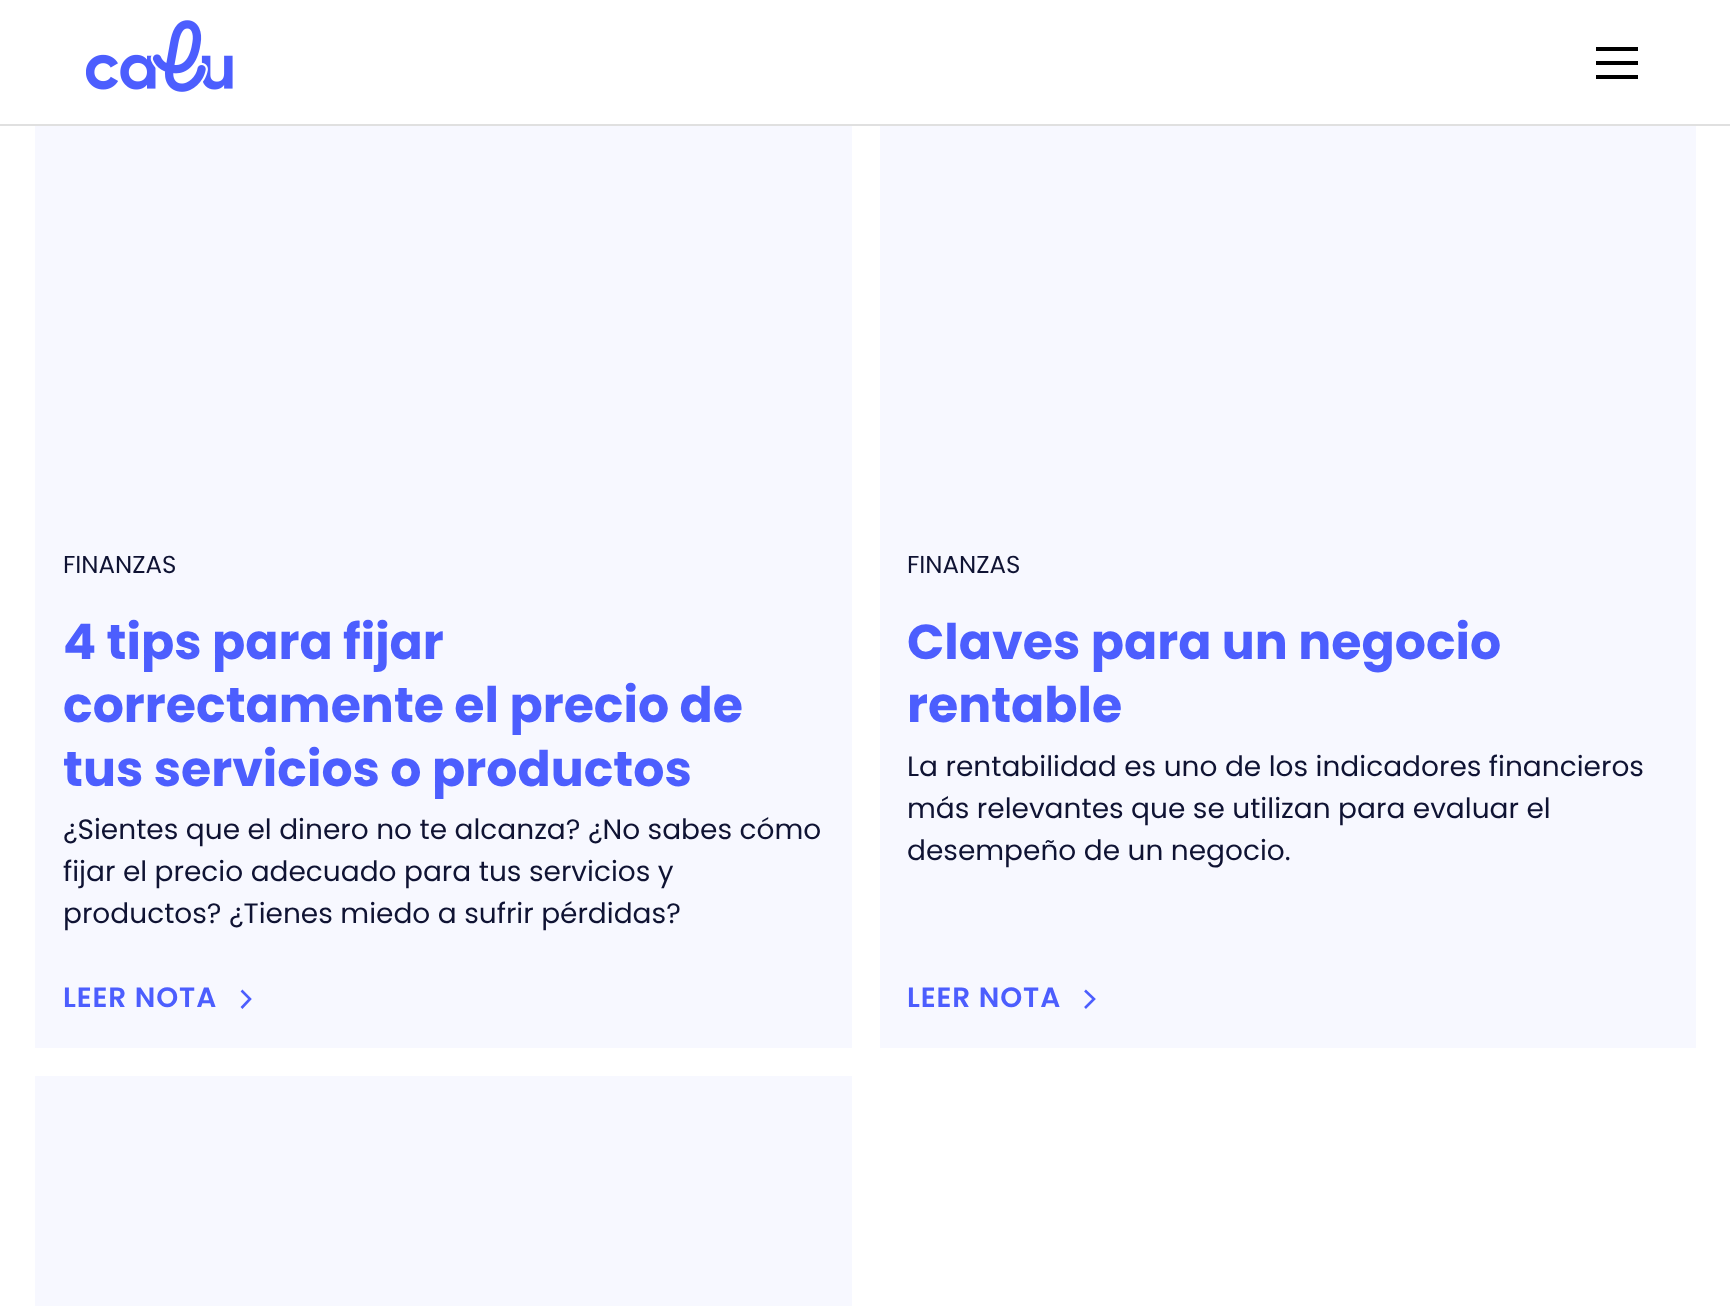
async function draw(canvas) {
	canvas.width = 1730;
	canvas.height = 1306;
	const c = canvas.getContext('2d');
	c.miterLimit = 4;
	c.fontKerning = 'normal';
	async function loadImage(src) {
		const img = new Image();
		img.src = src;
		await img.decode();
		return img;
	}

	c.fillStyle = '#fff';
	c.fillRect(0, 0, 1730, 1306);
	c.fillStyle = '#e0e0e0';
	c.fillRect(0, 124, 1730, 2);
	c.drawImage(await loadImage('img1.png'), 86, 20, 147, 72);
	for (const [x, y, w, h, color] of [
		[1596, 47, 42, 4, '#000'],
		[1596, 61, 42, 4, '#000'],
		[1596, 75, 42, 4, '#000'],
		[35, 126, 817, 922, '#f7f8ff'],
	]) {
		c.fillStyle = color;
		c.fillRect(x, y, w, h);
	}
	c.font = '24.5px Poppins';
	c.fillStyle = '#0f1333';
	c.fillText('FINANZAS', 63, 573);
	c.font = 'bold 49px Poppins';
	c.fillStyle = '#4c5efe';
	for (const [text, x, y] of [
		['4 tips para fijar', 63, 659],
		['correctamente el precio de', 63, 722],
		['tus servicios o productos', 63, 786],
	]) {
		c.fillText(text, x, y);
	}
	c.font = '28px Poppins';
	c.fillStyle = '#0f1333';
	for (const [text, x, y] of [
		['¿Sientes que el dinero no te alcanza? ¿No sabes cómo', 63, 839],
		['fijar el precio adecuado para tus servicios y', 63, 881],
		['productos? ¿Tienes miedo a sufrir pérdidas?', 63, 923],
	]) {
		c.fillText(text, x, y);
	}
	c.letterSpacing = '0.9px';
	c.font = '600 28px Poppins';
	c.fillStyle = '#4c5efe';
	c.fillText('LEER NOTA', 63, 1007);
	c.beginPath();
	c.moveTo(241.5, 990.5);
	c.lineTo(250, 999);
	c.lineTo(241.5, 1008);
	c.strokeStyle = '#4c5efe';
	c.lineWidth = 2.6;
	c.stroke();
	c.fillStyle = '#f7f8ff';
	c.fillRect(880, 126, 816, 922);
	c.letterSpacing = '0px';
	c.font = '24.5px Poppins';
	c.fillStyle = '#0f1333';
	c.fillText('FINANZAS', 907, 573);
	c.font = 'bold 49px Poppins';
	c.fillStyle = '#4c5efe';
	c.fillText('Claves para un negocio', 907, 659);
	c.fillText('rentable', 907, 722);
	c.font = '28px Poppins';
	c.fillStyle = '#0f1333';
	for (const [text, x, y] of [
		['La rentabilidad es uno de los indicadores financieros', 907, 776],
		['más relevantes que se utilizan para evaluar el', 907, 818],
		['desempeño de un negocio.', 907, 860],
	]) {
		c.fillText(text, x, y);
	}
	c.letterSpacing = '0.9px';
	c.font = '600 28px Poppins';
	c.fillStyle = '#4c5efe';
	c.fillText('LEER NOTA', 907, 1007);
	c.beginPath();
	c.moveTo(1085, 990.5);
	c.lineTo(1094, 999);
	c.lineTo(1085, 1008);
	c.stroke();
	c.fillStyle = '#f7f8ff';
	c.fillRect(35, 1076, 817, 230);
}

draw(document.querySelector('canvas'));
